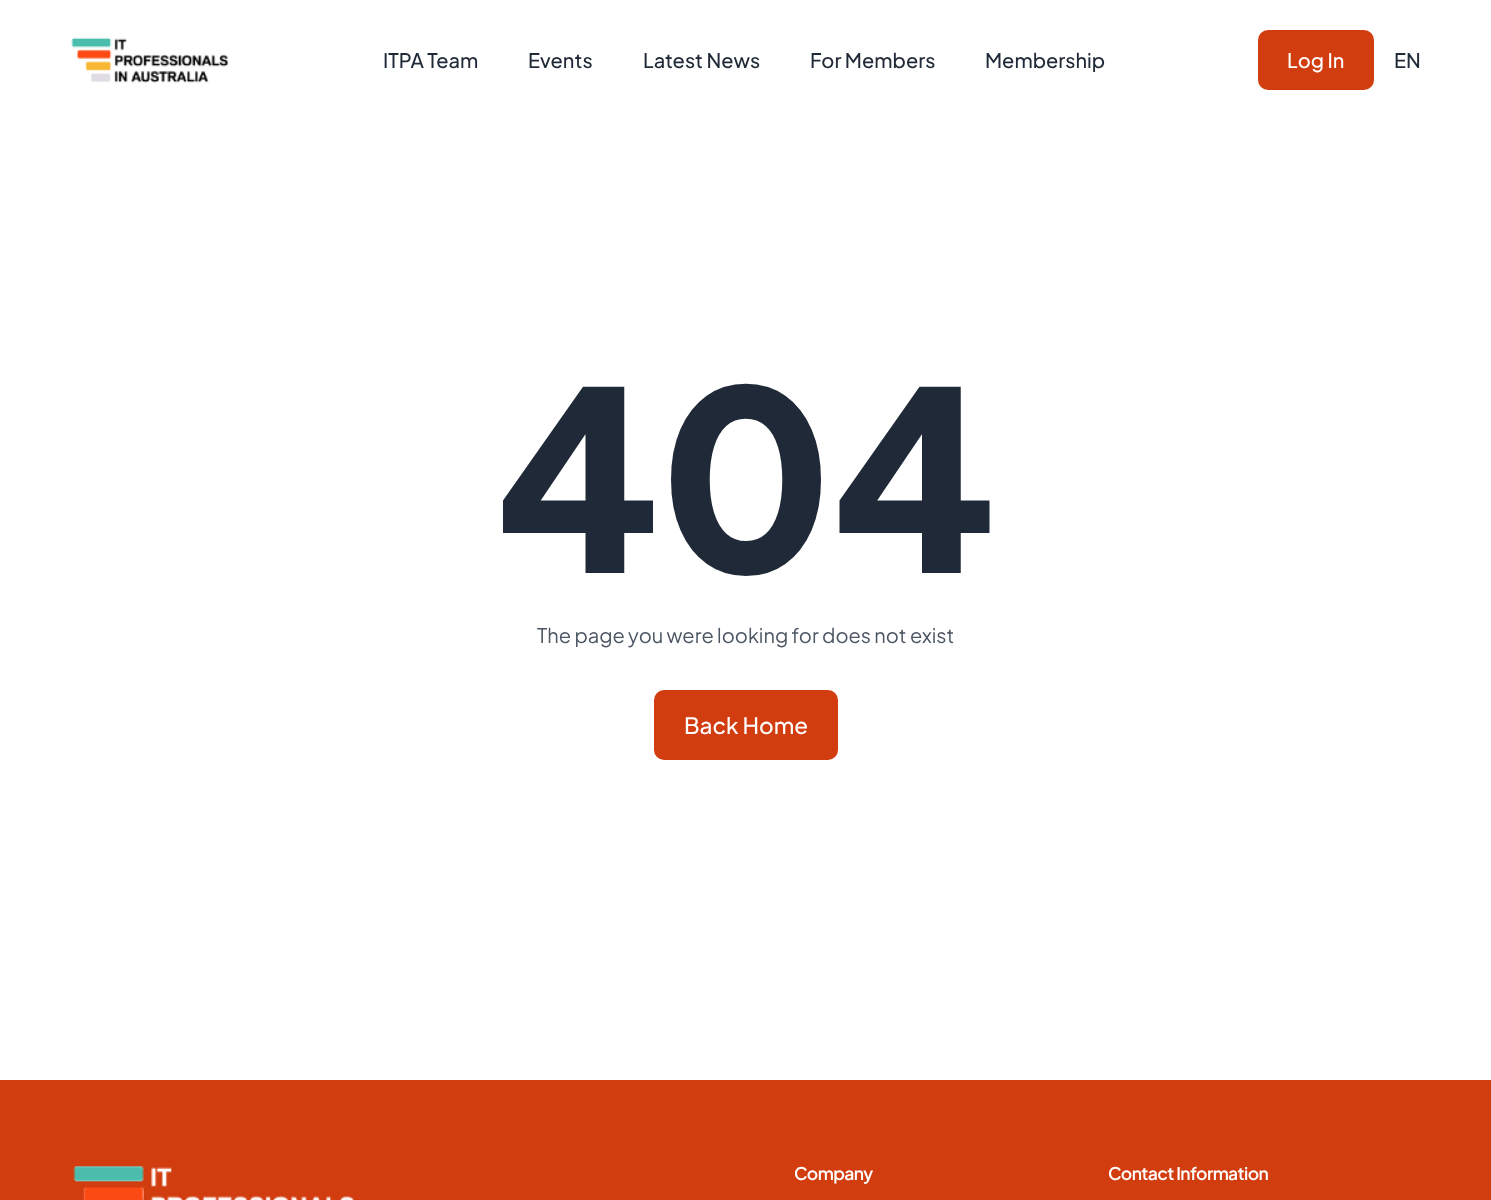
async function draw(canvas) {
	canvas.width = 1491;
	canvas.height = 1200;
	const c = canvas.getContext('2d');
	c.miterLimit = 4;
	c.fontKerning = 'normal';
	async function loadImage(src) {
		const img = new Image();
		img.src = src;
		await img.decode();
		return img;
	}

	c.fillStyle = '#fff';
	c.fillRect(0, 0, 1491, 1200);
	c.drawImage(await loadImage('img1.png'), 71, 37, 158, 46);
	c.font = '500 20px Plus Jakarta Sans';
	c.fillStyle = '#1f2937';
	for (const [text, x, y] of [
		['ITPA Team', 383, 68],
		['Events', 528, 68],
		['Latest News', 643, 68],
		['For Members', 810, 68],
		['Membership', 985, 68],
	]) {
		c.fillText(text, x, y);
	}
	c.fillStyle = '#d23d10';
	c.beginPath();
	c.roundRect(1258, 30, 116, 60, 10);
	c.fill();
	c.fillStyle = '#fff';
	c.fillText('Log In', 1287, 68);
	c.fillStyle = '#1f2937';
	c.fillText('EN', 1394, 68);
	c.letterSpacing = '-2px';
	c.font = '800 250px Plus Jakarta Sans';
	c.fillText('404', 495, 573);
	c.letterSpacing = '0px';
	c.font = '20px Plus Jakarta Sans';
	c.fillStyle = '#4b5563';
	c.fillText('The page you were looking for does not exist', 537, 643);
	c.fillStyle = '#d23d10';
	c.beginPath();
	c.roundRect(654, 690, 184, 70, 10);
	c.fill();
	c.font = '500 22.5px Plus Jakarta Sans';
	c.fillStyle = '#fff';
	c.fillText('Back Home', 684, 734);
	c.fillStyle = '#d23d10';
	c.fillRect(0, 1080, 1491, 120);
	c.drawImage(await loadImage('img2.png'), 73, 1166, 281, 34);
	c.letterSpacing = '-0.6px';
	c.font = '600 17.5px Plus Jakarta Sans';
	c.fillStyle = '#fff';
	c.fillText('Company', 794, 1180);
	c.fillText('Contact Information', 1108, 1180);
}

draw(document.querySelector('canvas'));
